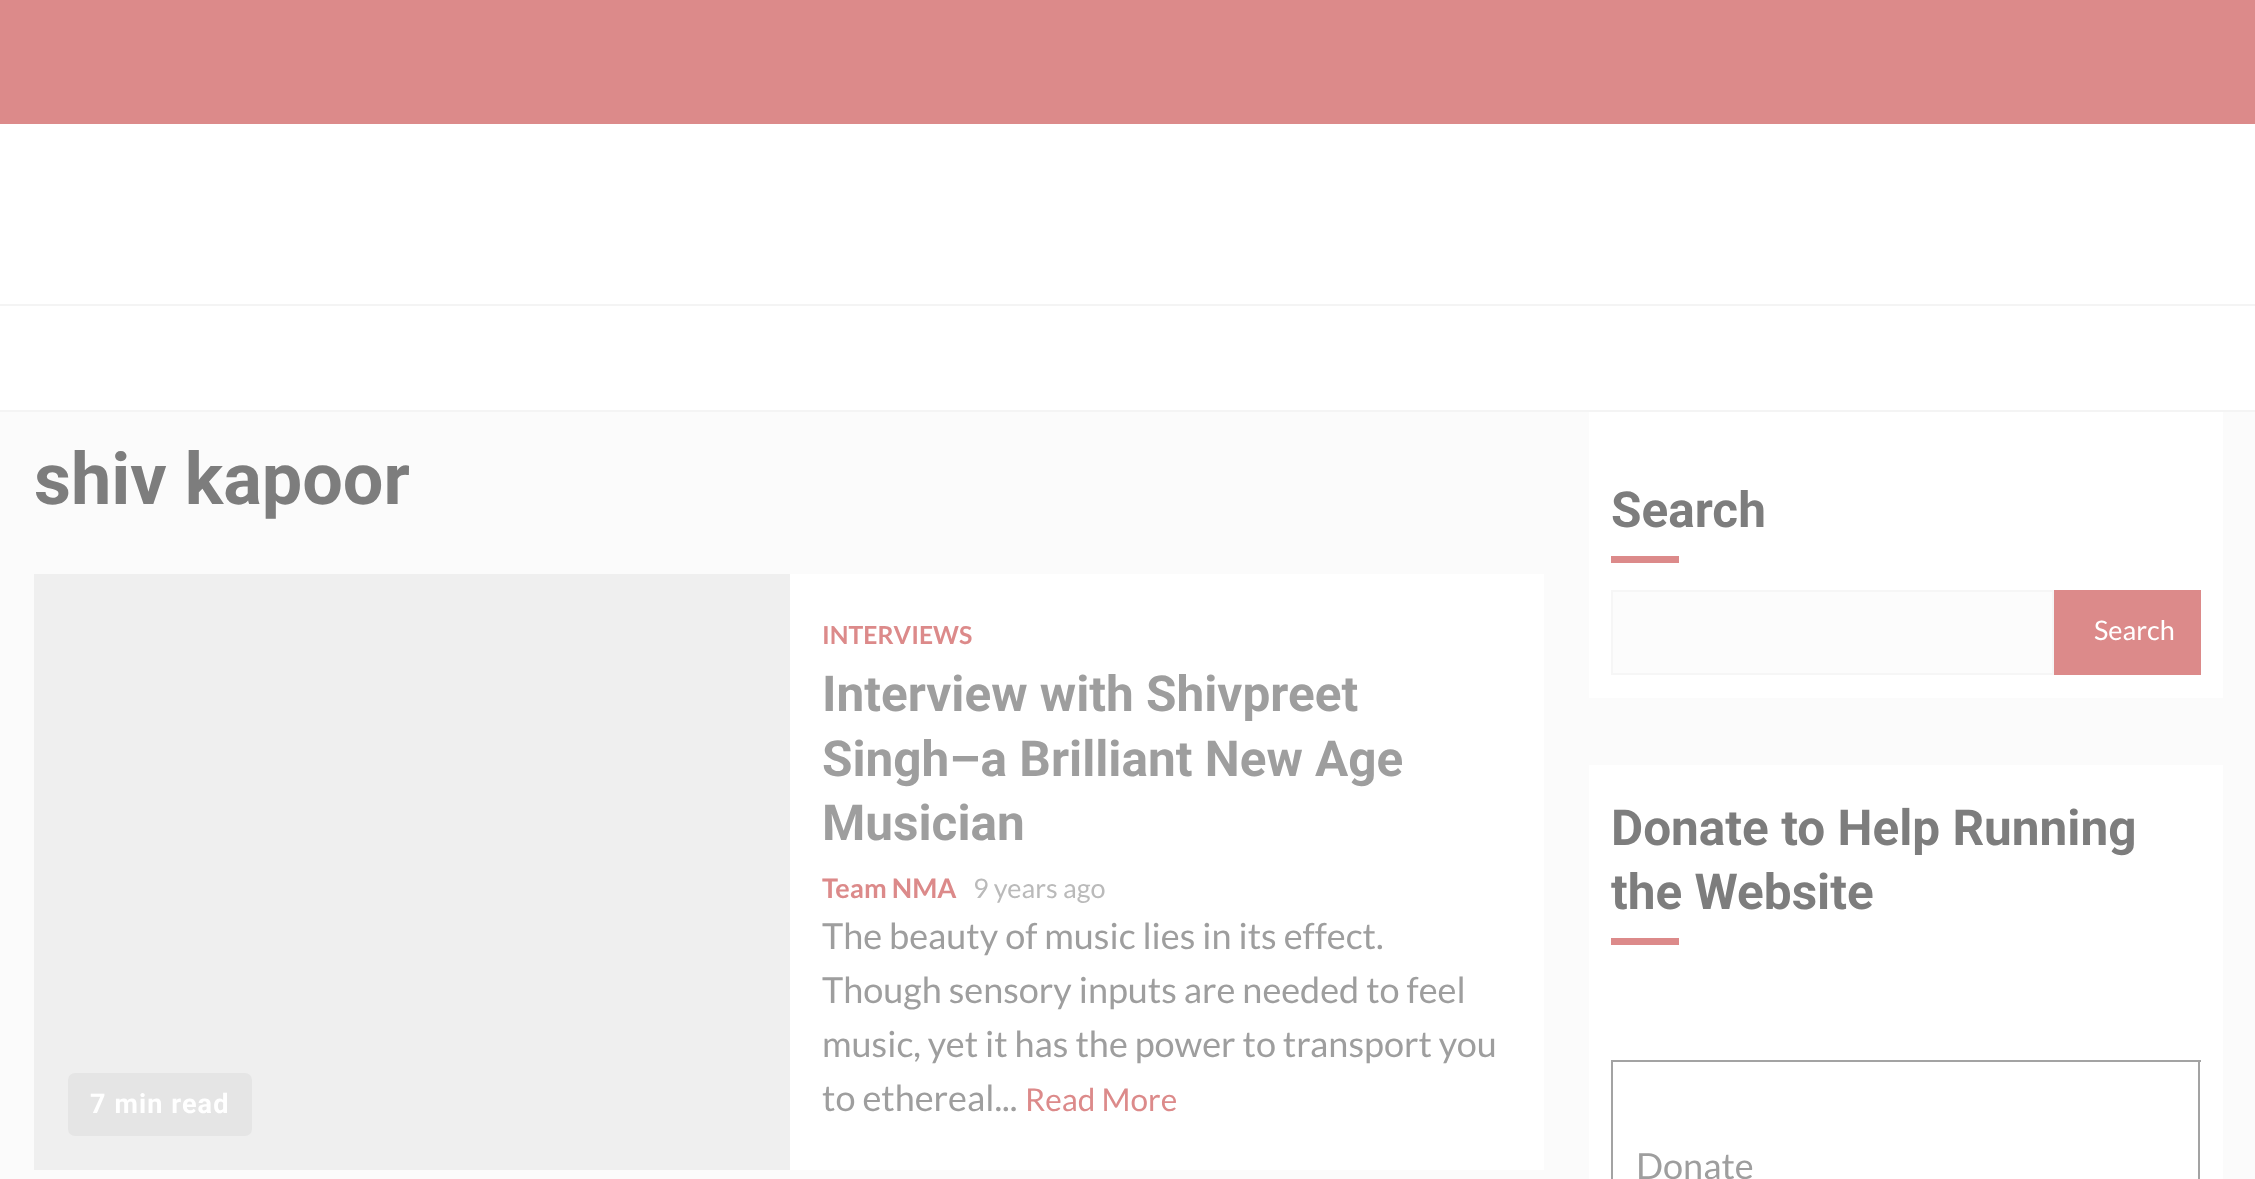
async function draw(canvas) {
	canvas.width = 2255;
	canvas.height = 1179;
	const c = canvas.getContext('2d');
	c.miterLimit = 4;
	c.fontKerning = 'normal';

	c.fillStyle = '#fbfbfb';
	c.fillRect(0, 0, 2255, 1179);
	for (const [x, y, w, h, color] of [
		[0, 124, 2255, 286, '#fff'],
		[0, 0, 2255, 124, '#dc8a8a'],
		[0, 304, 2255, 2, '#f4f4f4'],
		[0, 410, 2255, 2, '#f4f4f4'],
	]) {
		c.fillStyle = color;
		c.fillRect(x, y, w, h);
	}
	c.font = 'bold 72px Roboto';
	c.fillStyle = '#7d7d7d';
	c.fillText('shiv kapoor', 34, 504);
	c.fillStyle = '#fff';
	c.fillRect(790, 574, 754, 596);
	c.fillStyle = '#efefef';
	c.fillRect(34, 574, 756, 596);
	c.fillStyle = '#e5e5e5';
	c.beginPath();
	c.roundRect(68, 1073, 184, 63, 7);
	c.fill();
	c.letterSpacing = '1.1px';
	c.font = 'bold 27px Roboto';
	c.fillStyle = '#fff';
	c.fillText('7 min read', 90, 1113);
	c.letterSpacing = '0px';
	c.font = 'bold 24.75px Lato';
	c.fillStyle = '#dc8a8a';
	c.fillText('INTERVIEWS', 822, 644);
	c.font = 'bold 49.5px Roboto';
	c.fillStyle = '#9e9e9e';
	for (const [text, x, y] of [
		['Interview with Shivpreet', 822, 711],
		['Singh–a Brilliant New Age', 822, 776],
		['Musician', 822, 840],
	]) {
		c.fillText(text, x, y);
	}
	c.font = 'bold 27px Lato';
	c.fillStyle = '#dc8a8a';
	c.fillText('Team NMA', 822, 898);
	c.font = '27px Lato';
	c.fillStyle = '#bababa';
	c.fillText('9 years ago', 973, 898);
	c.font = '36px Lato';
	c.fillStyle = '#9e9e9e';
	for (const [text, x, y] of [
		['The beauty of music lies in its effect.', 822, 949],
		['Though sensory inputs are needed to feel', 822, 1003],
		['music, yet it has the power to transport you', 822, 1057],
		['to ethereal...', 822, 1111],
	]) {
		c.fillText(text, x, y);
	}
	c.font = '31.5px Lato';
	c.fillStyle = '#dc8a8a';
	c.fillText('Read More', 1025, 1111);
	c.fillStyle = '#fff';
	c.fillRect(1589, 412, 634, 286);
	c.font = 'bold 49.5px Roboto';
	c.fillStyle = '#7d7d7d';
	c.fillText('Search', 1611, 527);
	c.fillStyle = '#dc8a8a';
	c.fillRect(1611, 556, 68, 7);
	c.fillStyle = '#fcfcfc';
	c.beginPath();
	c.rect(1612, 591, 441, 83);
	c.fill();
	c.strokeStyle = '#f6f6f6';
	c.lineWidth = 2;
	c.stroke();
	c.fillStyle = '#dc8a8a';
	c.fillRect(2054, 590, 147, 85);
	c.font = '27px Lato';
	c.fillStyle = '#fff';
	c.fillText('Search', 2094, 640);
	c.fillRect(1589, 765, 634, 414);
	c.font = 'bold 49.5px Roboto';
	c.fillStyle = '#7d7d7d';
	c.fillText('Donate to Help Running', 1611, 845);
	c.fillText('the Website', 1611, 909);
	for (const [x, y, w, h, color] of [
		[1611, 938, 68, 7, '#dc8a8a'],
		[1611, 1060, 590, 2, '#a3a3a3'],
		[2198, 1060, 2, 119, '#a3a3a3'],
		[1611, 1060, 2, 119, '#a3a3a3'],
	]) {
		c.fillStyle = color;
		c.fillRect(x, y, w, h);
	}
	c.font = '36px Lato';
	c.fillStyle = '#9e9e9e';
	c.fillText('Donate', 1636, 1179);
}

draw(document.querySelector('canvas'));
